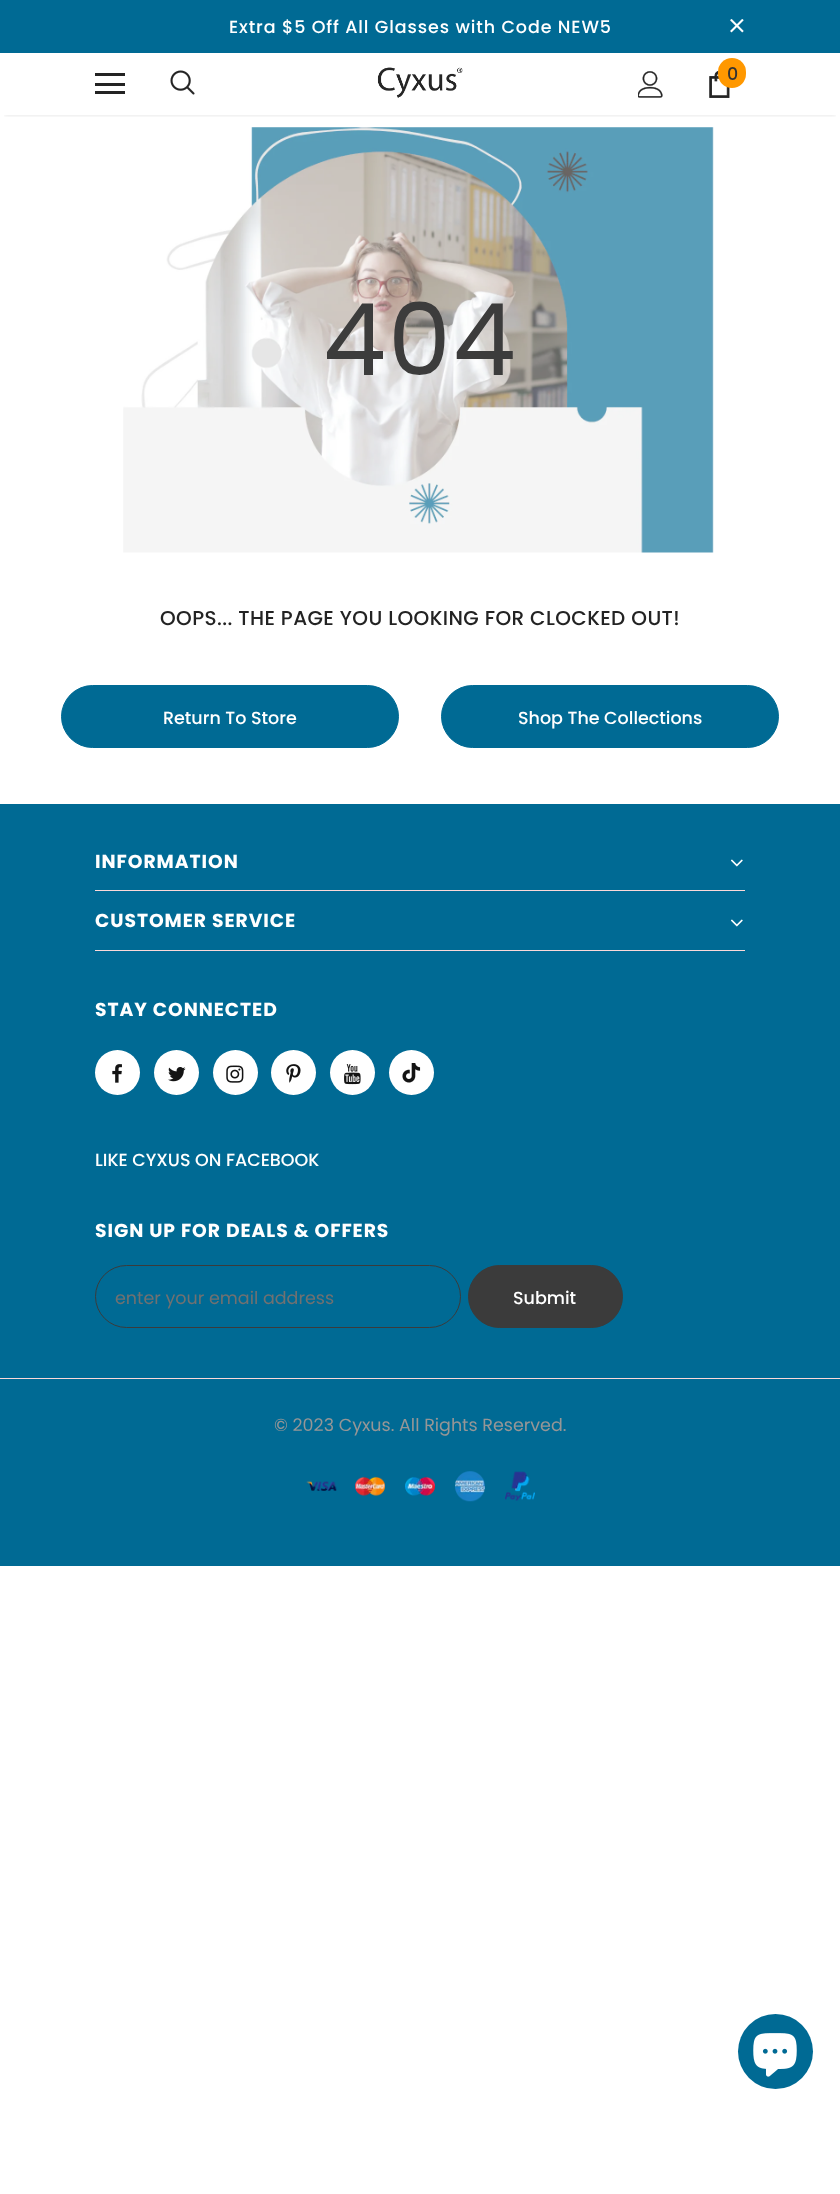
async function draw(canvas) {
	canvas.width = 840;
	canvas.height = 2194;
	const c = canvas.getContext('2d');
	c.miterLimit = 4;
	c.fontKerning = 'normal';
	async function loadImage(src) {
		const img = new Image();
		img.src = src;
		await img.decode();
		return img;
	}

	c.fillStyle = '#fff';
	c.fillRect(0, 0, 840, 2194);
	c.fillStyle = '#006a94';
	c.fillRect(0, 0, 840, 53);
	c.letterSpacing = '0.9px';
	c.font = '500 17.5px Poppins';
	c.fillStyle = '#fff';
	c.fillText('Extra $5 Off All Glasses with Code NEW5', 229, 33);
	c.drawImage(await loadImage('img1.png'), 730, 19, 14, 14);
	c.save();
	c.beginPath();
	c.rect(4, 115, 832, 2);
	c.clip();
	c.fillStyle = '#0000001f';
	c.filter = 'blur(2px)';
	c.beginPath();
	c.rect(4, 60, 832, 55);
	c.fill();
	c.filter = 'none';
	c.restore();
	for (const [x, y, w, h, color] of [
		[95, 73, 30, 3, '#232323'],
		[95, 83, 30, 3, '#232323'],
		[95, 91, 30, 3, '#232323'],
	]) {
		c.fillStyle = color;
		c.fillRect(x, y, w, h);
	}
	c.drawImage(await loadImage('img2.png'), 170, 70, 25, 25);
	c.drawImage(await loadImage('img3.png'), 377, 67, 86, 31);
	c.drawImage(await loadImage('img4.png'), 638, 71, 25, 27);
	c.drawImage(await loadImage('img5.png'), 709, 71, 21, 27);
	c.fillStyle = '#ff9800';
	c.beginPath();
	c.roundRect(718, 58, 28, 30, 14);
	c.fill();
	c.letterSpacing = '0px';
	c.fillStyle = '#323232';
	c.fillText('0', 727, 80);
	c.drawImage(await loadImage('img6.png'), 123, 127, 591, 426);
	c.letterSpacing = '2px';
	c.font = '100px Poppins';
	c.fillStyle = '#3c3c3c';
	c.fillText('404', 323, 375);
	c.letterSpacing = '0.4px';
	c.font = '500 20px Poppins';
	c.fillStyle = '#232323';
	c.fillText('OOPS... THE PAGE YOU LOOKING FOR CLOCKED OUT!', 160, 625);
	c.fillStyle = '#006a94';
	c.beginPath();
	c.roundRect(61.5, 685.5, 337, 62, 31);
	c.fill();
	c.strokeStyle = '#006a94';
	c.stroke();
	c.letterSpacing = '0px';
	c.font = '500 17.5px Poppins';
	c.fillStyle = '#fff';
	c.fillText('Return To Store', 163, 724);
	c.fillStyle = '#006a94';
	c.beginPath();
	c.roundRect(441.5, 685.5, 337, 62, 31);
	c.fill();
	c.stroke();
	c.fillStyle = '#fff';
	c.fillText('Shop The Collections', 518, 724);
	c.fillStyle = '#006a94';
	c.fillRect(0, 804, 840, 762);
	c.fillStyle = '#fad9d9';
	c.fillRect(95, 890, 650, 1);
	c.letterSpacing = '0.95px';
	c.font = 'bold 18.75px Poppins';
	c.fillStyle = '#fff';
	c.fillText('INFORMATION', 95, 868);
	c.drawImage(await loadImage('img7.png'), 731, 859, 12, 8);
	c.fillStyle = '#fad9d9';
	c.fillRect(95, 950, 650, 1);
	c.fillStyle = '#fff';
	c.fillText('CUSTOMER SERVICE', 95, 927);
	c.drawImage(await loadImage('img7.png'), 731, 919, 12, 8);
	c.fillText('STAY CONNECTED', 95, 1016);
	c.beginPath();
	c.arc(117.5, 1072.5, 22.5, 0, 2 * Math.PI);
	c.fill();
	c.drawImage(await loadImage('img8.png'), 112, 1064, 10, 19);
	c.beginPath();
	c.arc(176.5, 1072.5, 22.5, 0, 2 * Math.PI);
	c.fill();
	c.drawImage(await loadImage('img9.png'), 168, 1067, 18, 15);
	c.beginPath();
	c.arc(235.5, 1072.5, 22.5, 0, 2 * Math.PI);
	c.fill();
	c.drawImage(await loadImage('img10.png'), 226, 1065, 18, 18);
	c.beginPath();
	c.arc(293.5, 1072.5, 22.5, 0, 2 * Math.PI);
	c.fill();
	c.drawImage(await loadImage('img11.png'), 286, 1064, 15, 19);
	c.beginPath();
	c.arc(352.5, 1072.5, 22.5, 0, 2 * Math.PI);
	c.fill();
	c.drawImage(await loadImage('img12.png'), 344, 1064, 17, 21);
	c.beginPath();
	c.arc(411.5, 1072.5, 22.5, 0, 2 * Math.PI);
	c.fill();
	c.drawImage(await loadImage('img13.png'), 402, 1063, 19, 20);
	c.letterSpacing = '0px';
	c.font = '500 17.5px Poppins';
	c.fillText('LIKE CYXUS ON FACEBOOK', 95, 1166);
	c.letterSpacing = '0.95px';
	c.font = 'bold 18.75px Poppins';
	c.fillText('SIGN UP FOR DEALS & OFFERS', 95, 1237);
	c.beginPath();
	c.roundRect(95.5, 1265.5, 365, 62, 31);
	c.strokeStyle = '#3b3b3b';
	c.stroke();
	c.letterSpacing = '0px';
	c.font = '17.5px Poppins';
	c.fillStyle = '#717171';
	c.fillText('enter your email address', 115, 1304);
	c.fillStyle = '#3b3b3b';
	c.beginPath();
	c.roundRect(468.5, 1265.5, 154, 62, 31);
	c.fill();
	c.stroke();
	c.font = '500 17.5px Poppins';
	c.fillStyle = '#fff';
	c.fillText('Submit', 513, 1304);
	c.fillStyle = '#fad9d9';
	c.fillRect(0, 1378, 840, 1);
	c.font = '17.5px Poppins';
	c.fillStyle = '#969696';
	c.fillText('© 2023 Cyxus. All Rights Reserved.', 274, 1431);
	c.drawImage(await loadImage('img14.png'), 306, 1481, 31, 10);
	c.drawImage(await loadImage('img15.png'), 355, 1476, 30, 20);
	c.drawImage(await loadImage('img16.png'), 405, 1476, 30, 20);
	c.drawImage(await loadImage('img17.png'), 455, 1471, 30, 31);
	c.drawImage(await loadImage('img18.png'), 505, 1471, 30, 30);
	c.fillStyle = '#006a94';
	c.beginPath();
	c.arc(775.5, 2051.5, 37.5, 0, 2 * Math.PI);
	c.fill();
	c.drawImage(await loadImage('img19.png'), 753, 2033, 44, 44);
}

draw(document.querySelector('canvas'));
